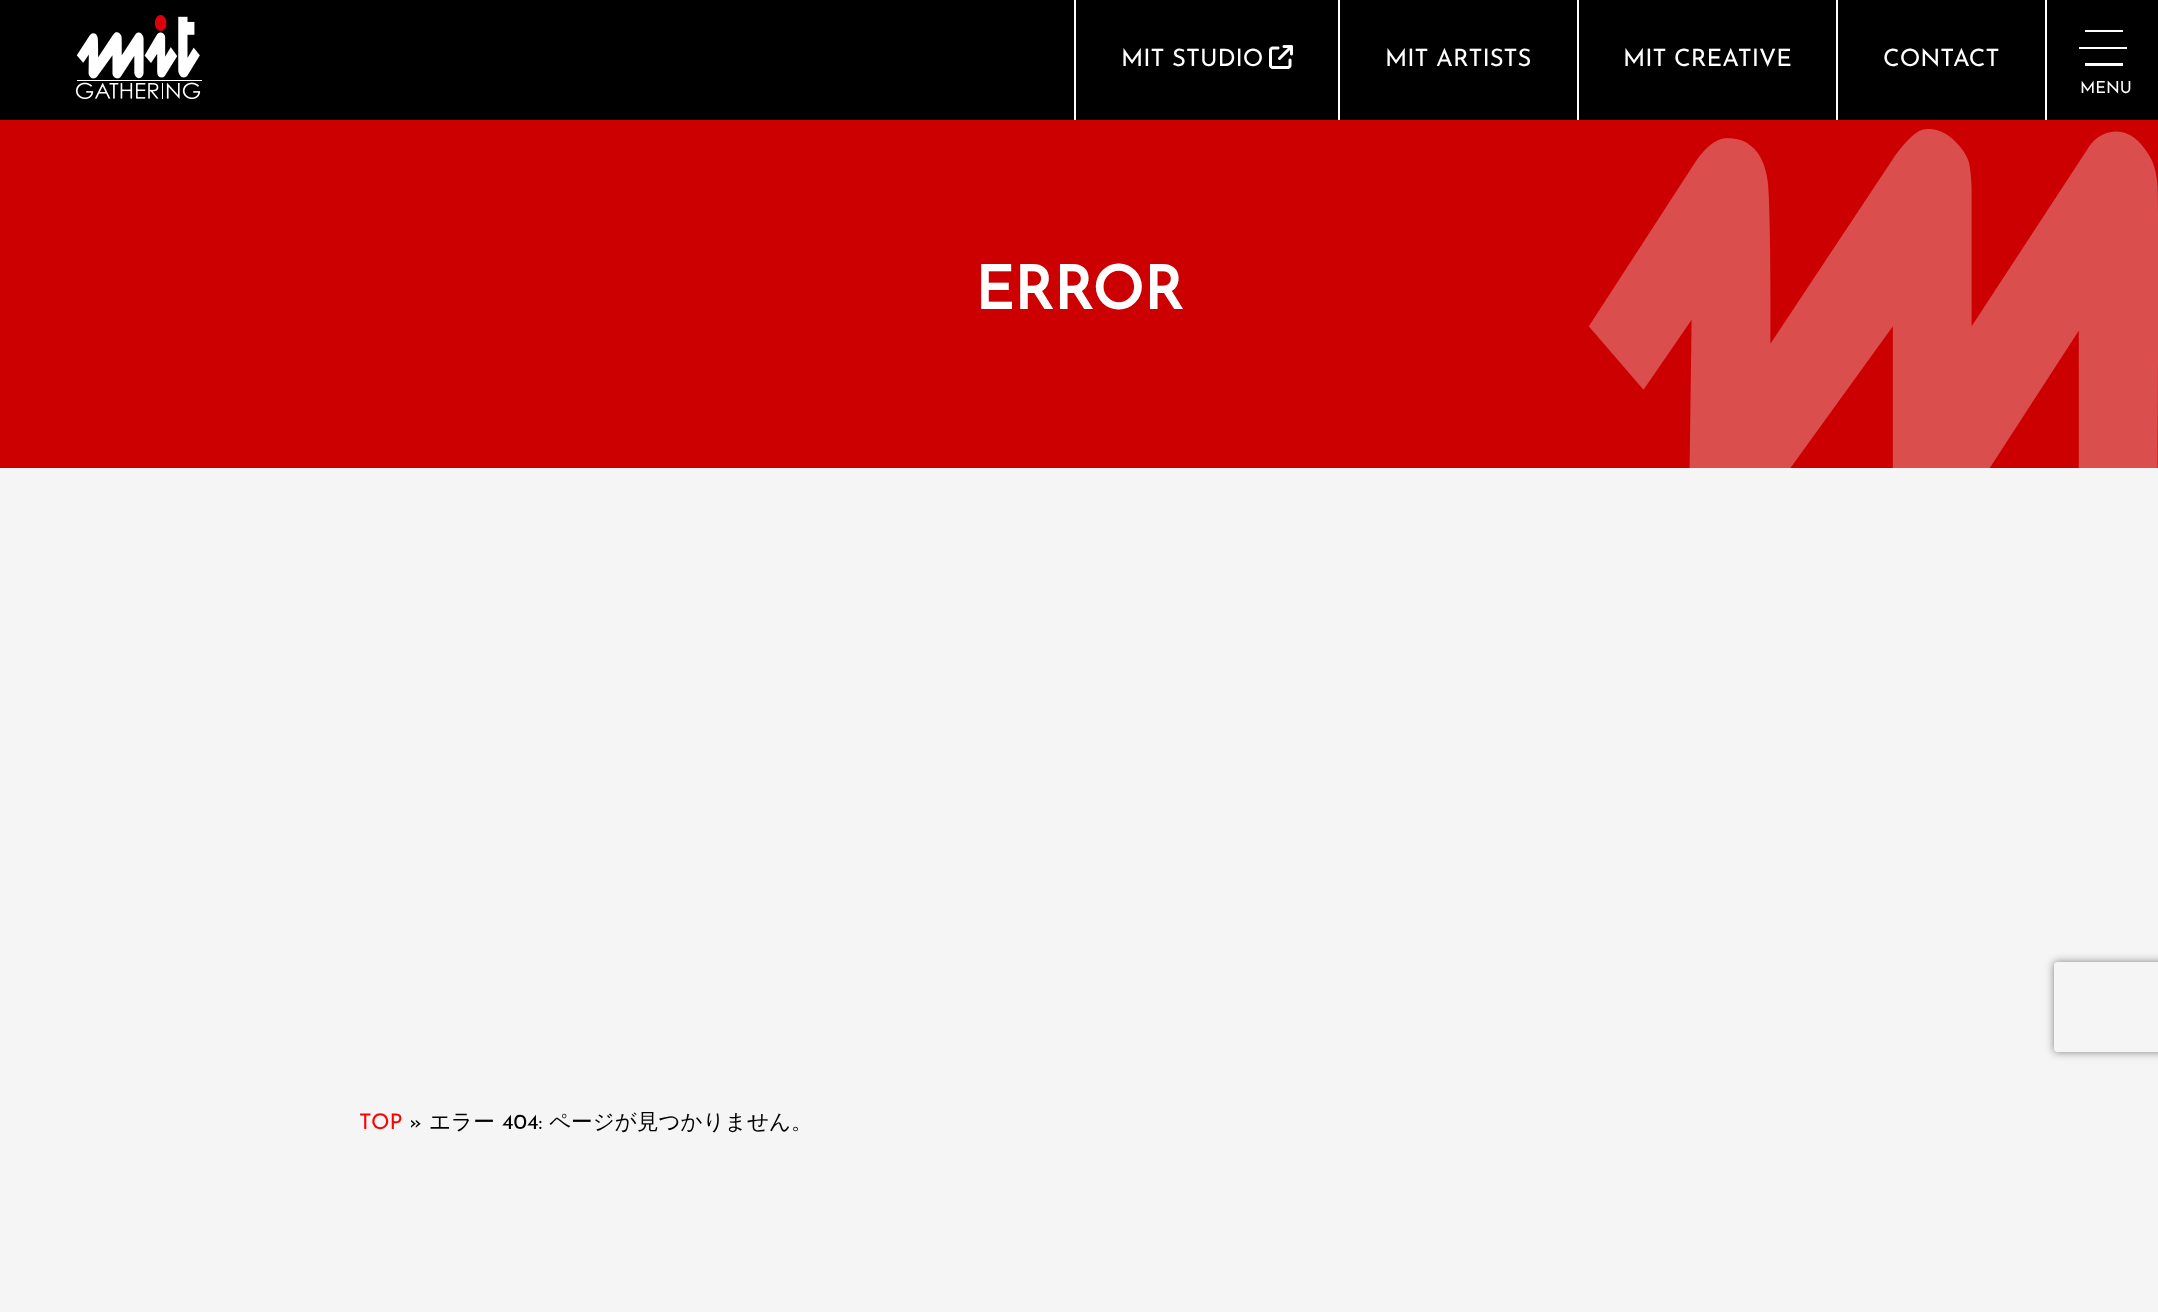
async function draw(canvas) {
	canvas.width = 2158;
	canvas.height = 1312;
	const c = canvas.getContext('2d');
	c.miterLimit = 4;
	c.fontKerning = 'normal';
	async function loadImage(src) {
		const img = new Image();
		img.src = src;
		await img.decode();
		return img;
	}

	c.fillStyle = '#f5f5f5';
	c.fillRect(0, 0, 2158, 1312);
	c.fillStyle = '#000';
	c.fillRect(0, 0, 2158, 120);
	c.drawImage(await loadImage('img1.png'), 75, 15, 127, 84);
	c.fillStyle = '#fff';
	c.fillRect(1074, 0, 2, 120);
	c.font = '100 24px Josefin Sans';
	c.fillText('MIT STUDIO', 1121, 66);
	c.drawImage(await loadImage('img2.png'), 1269, 45, 24, 24);
	c.fillRect(1338, 0, 2, 120);
	c.fillText('MIT ARTISTS', 1385, 66);
	c.fillRect(1577, 0, 2, 120);
	c.fillText('MIT CREATIVE', 1623, 66);
	c.fillRect(1836, 0, 2, 120);
	c.fillText('CONTACT', 1883, 66);
	for (const [x, y, w, h, color] of [
		[2045, 0, 2, 120, '#fff'],
		[2085, 30, 38, 2, '#fff'],
		[2079, 47, 48, 2, '#fff'],
		[2085, 63, 38, 3, '#fff'],
	]) {
		c.fillStyle = color;
		c.fillRect(x, y, w, h);
	}
	c.font = '100 16.5px Josefin Sans';
	c.fillText('MENU', 2080, 93);
	c.fillStyle = '#c00';
	c.fillRect(0, 120, 2158, 348);
	c.drawImage(await loadImage('img3.png'), 1589, 129, 569, 339);
	c.font = 'bold 60px Josefin Sans';
	c.fillStyle = '#fff';
	c.fillText('ERROR', 975, 309);
	c.font = '100 21.6px Josefin Sans';
	c.fillStyle = '#f00';
	c.fillText('TOP', 359, 1129);
	c.fillStyle = '#000';
	c.fillText('»', 409, 1129);
	c.font = '500 21.6px WenQuanYi Zen Hei';
	c.fillText('エラー', 429, 1129);
	c.font = '100 21.6px Josefin Sans';
	c.fillText('404:', 502, 1129);
	c.font = '500 21.6px WenQuanYi Zen Hei';
	c.fillText('ページが見つかりません。', 549, 1129);
	c.save();
	c.beginPath();
	c.moveTo(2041, 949);
	c.lineTo(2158, 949);
	c.lineTo(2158, 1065);
	c.lineTo(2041, 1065);
	c.closePath();
	c.moveTo(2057, 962);
	c.lineTo(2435, 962);
	c.bezierCurveTo(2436.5, 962, 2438, 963.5, 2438, 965);
	c.lineTo(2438, 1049);
	c.bezierCurveTo(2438, 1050.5, 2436.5, 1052, 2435, 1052);
	c.lineTo(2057, 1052);
	c.bezierCurveTo(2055.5, 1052, 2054, 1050.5, 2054, 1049);
	c.lineTo(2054, 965);
	c.bezierCurveTo(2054, 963.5, 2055.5, 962, 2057, 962);
	c.closePath();
	c.clip('evenodd');
	c.fillStyle = '#808080';
	c.filter = 'blur(4px)';
	c.beginPath();
	c.roundRect(2054, 962, 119, 90, 3);
	c.fill();
	c.filter = 'none';
	c.restore();
}

draw(document.querySelector('canvas'));
